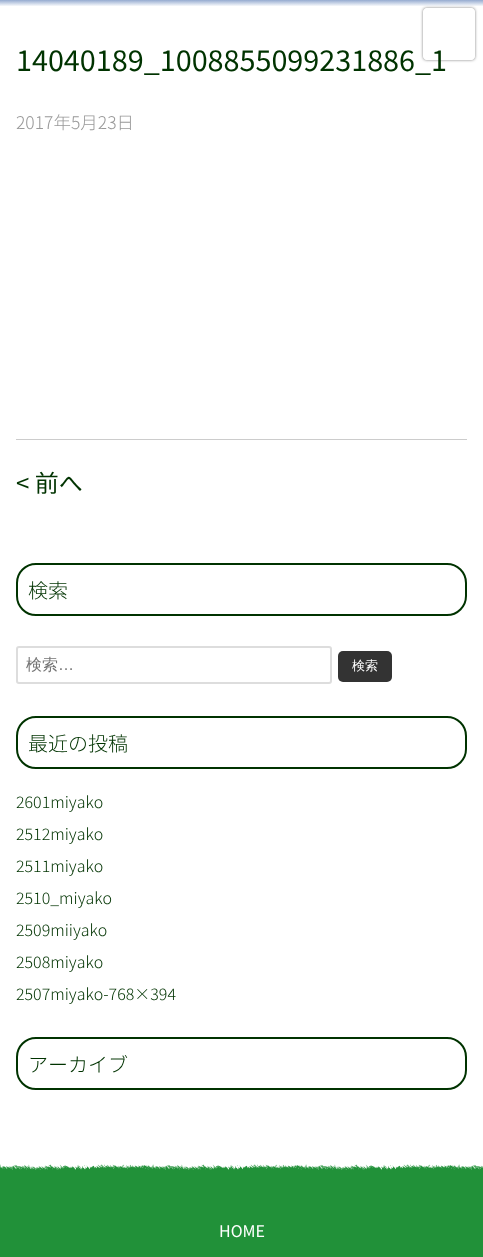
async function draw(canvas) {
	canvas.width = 483;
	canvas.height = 1257;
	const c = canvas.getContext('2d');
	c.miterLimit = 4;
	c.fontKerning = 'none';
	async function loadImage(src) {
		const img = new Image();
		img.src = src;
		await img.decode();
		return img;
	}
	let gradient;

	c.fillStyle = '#fff';
	c.fillRect(0, 0, 483, 1257);
	gradient = c.createLinearGradient(242, 24, 242, 0);
	gradient.addColorStop(0.73, '#fff');
	gradient.addColorStop(1, '#95abd0');
	c.fillStyle = gradient;
	c.fillRect(0, 0, 483, 6);
	c.save();
	c.beginPath();
	c.moveTo(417, 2);
	c.lineTo(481, 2);
	c.lineTo(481, 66);
	c.lineTo(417, 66);
	c.closePath();
	c.moveTo(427, 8);
	c.lineTo(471, 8);
	c.bezierCurveTo(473, 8, 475, 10, 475, 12);
	c.lineTo(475, 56);
	c.bezierCurveTo(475, 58, 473, 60, 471, 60);
	c.lineTo(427, 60);
	c.bezierCurveTo(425, 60, 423, 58, 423, 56);
	c.lineTo(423, 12);
	c.bezierCurveTo(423, 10, 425, 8, 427, 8);
	c.closePath();
	c.clip('evenodd');
	c.fillStyle = '#808080';
	c.filter = 'blur(1.5px)';
	c.beginPath();
	c.roundRect(423, 8, 52, 52, 4);
	c.fill();
	c.filter = 'none';
	c.restore();
	c.fillStyle = '#ffffff1a';
	c.beginPath();
	c.roundRect(423.5, 8.5, 51, 51, 3.5);
	c.fill();
	c.strokeStyle = '#fff';
	c.stroke();
	c.fillStyle = '#ccc';
	c.fillRect(16, 439, 451, 1);
	c.font = '28.75px Noto Sans JP';
	c.fillStyle = '#030';
	c.fillText('14040189_1008855099231886_1', 16, 71);
	c.font = '300 17.5px Noto Sans JP';
	c.fillStyle = '#999';
	c.fillText('2017年5月23日', 16, 129);
	c.font = '24px Noto Sans JP';
	c.fillStyle = '#030';
	c.fillText('< 前へ', 16, 492);
	c.beginPath();
	c.roundRect(17, 564, 449, 51, 19);
	c.strokeStyle = '#030';
	c.lineWidth = 2;
	c.stroke();
	c.font = '300 20px Noto Sans JP';
	c.fillText('検索', 28, 598);
	c.beginPath();
	c.roundRect(17, 647, 314, 36, 2);
	c.strokeStyle = '#ddd';
	c.stroke();
	c.font = '500 16px WenQuanYi Zen Hei';
	c.fillStyle = '#757575';
	c.fillText('検索', 26, 670);
	c.font = '16px Liberation Sans';
	c.fillText('…', 58, 670);
	c.fillStyle = '#333';
	c.beginPath();
	c.roundRect(338, 651, 54, 31, 5);
	c.fill();
	c.font = '500 13px WenQuanYi Zen Hei';
	c.fillStyle = '#fff';
	c.fillText('検索', 352, 670);
	c.beginPath();
	c.roundRect(17, 717, 449, 51, 19);
	c.strokeStyle = '#030';
	c.stroke();
	c.font = '300 20px Noto Sans JP';
	c.fillStyle = '#030';
	c.fillText('最近の投稿', 28, 751);
	c.font = '300 16px Noto Sans JP';
	for (const [text, x, y] of [
		['2601miyako', 16, 808],
		['2512miyako', 16, 840],
		['2511miyako', 16, 872],
		['2510_miyako', 16, 904],
		['2509miiyako', 16, 936],
		['2508miyako', 16, 968],
		['2507miyako-768×394', 16, 1000],
	]) {
		c.fillText(text, x, y);
	}
	c.beginPath();
	c.roundRect(17, 1038, 449, 51, 19);
	c.stroke();
	c.font = '300 20px Noto Sans JP';
	c.fillText('アーカイブ', 28, 1072);
	c.drawImage(await loadImage('img1.png'), 0, 1164, 483, 6);
	c.fillStyle = '#219139';
	c.fillRect(0, 1170, 483, 87);
	c.font = '16px Noto Sans JP';
	c.fillStyle = '#fff';
	c.fillText('HOME', 219, 1237);
}

draw(document.querySelector('canvas'));
